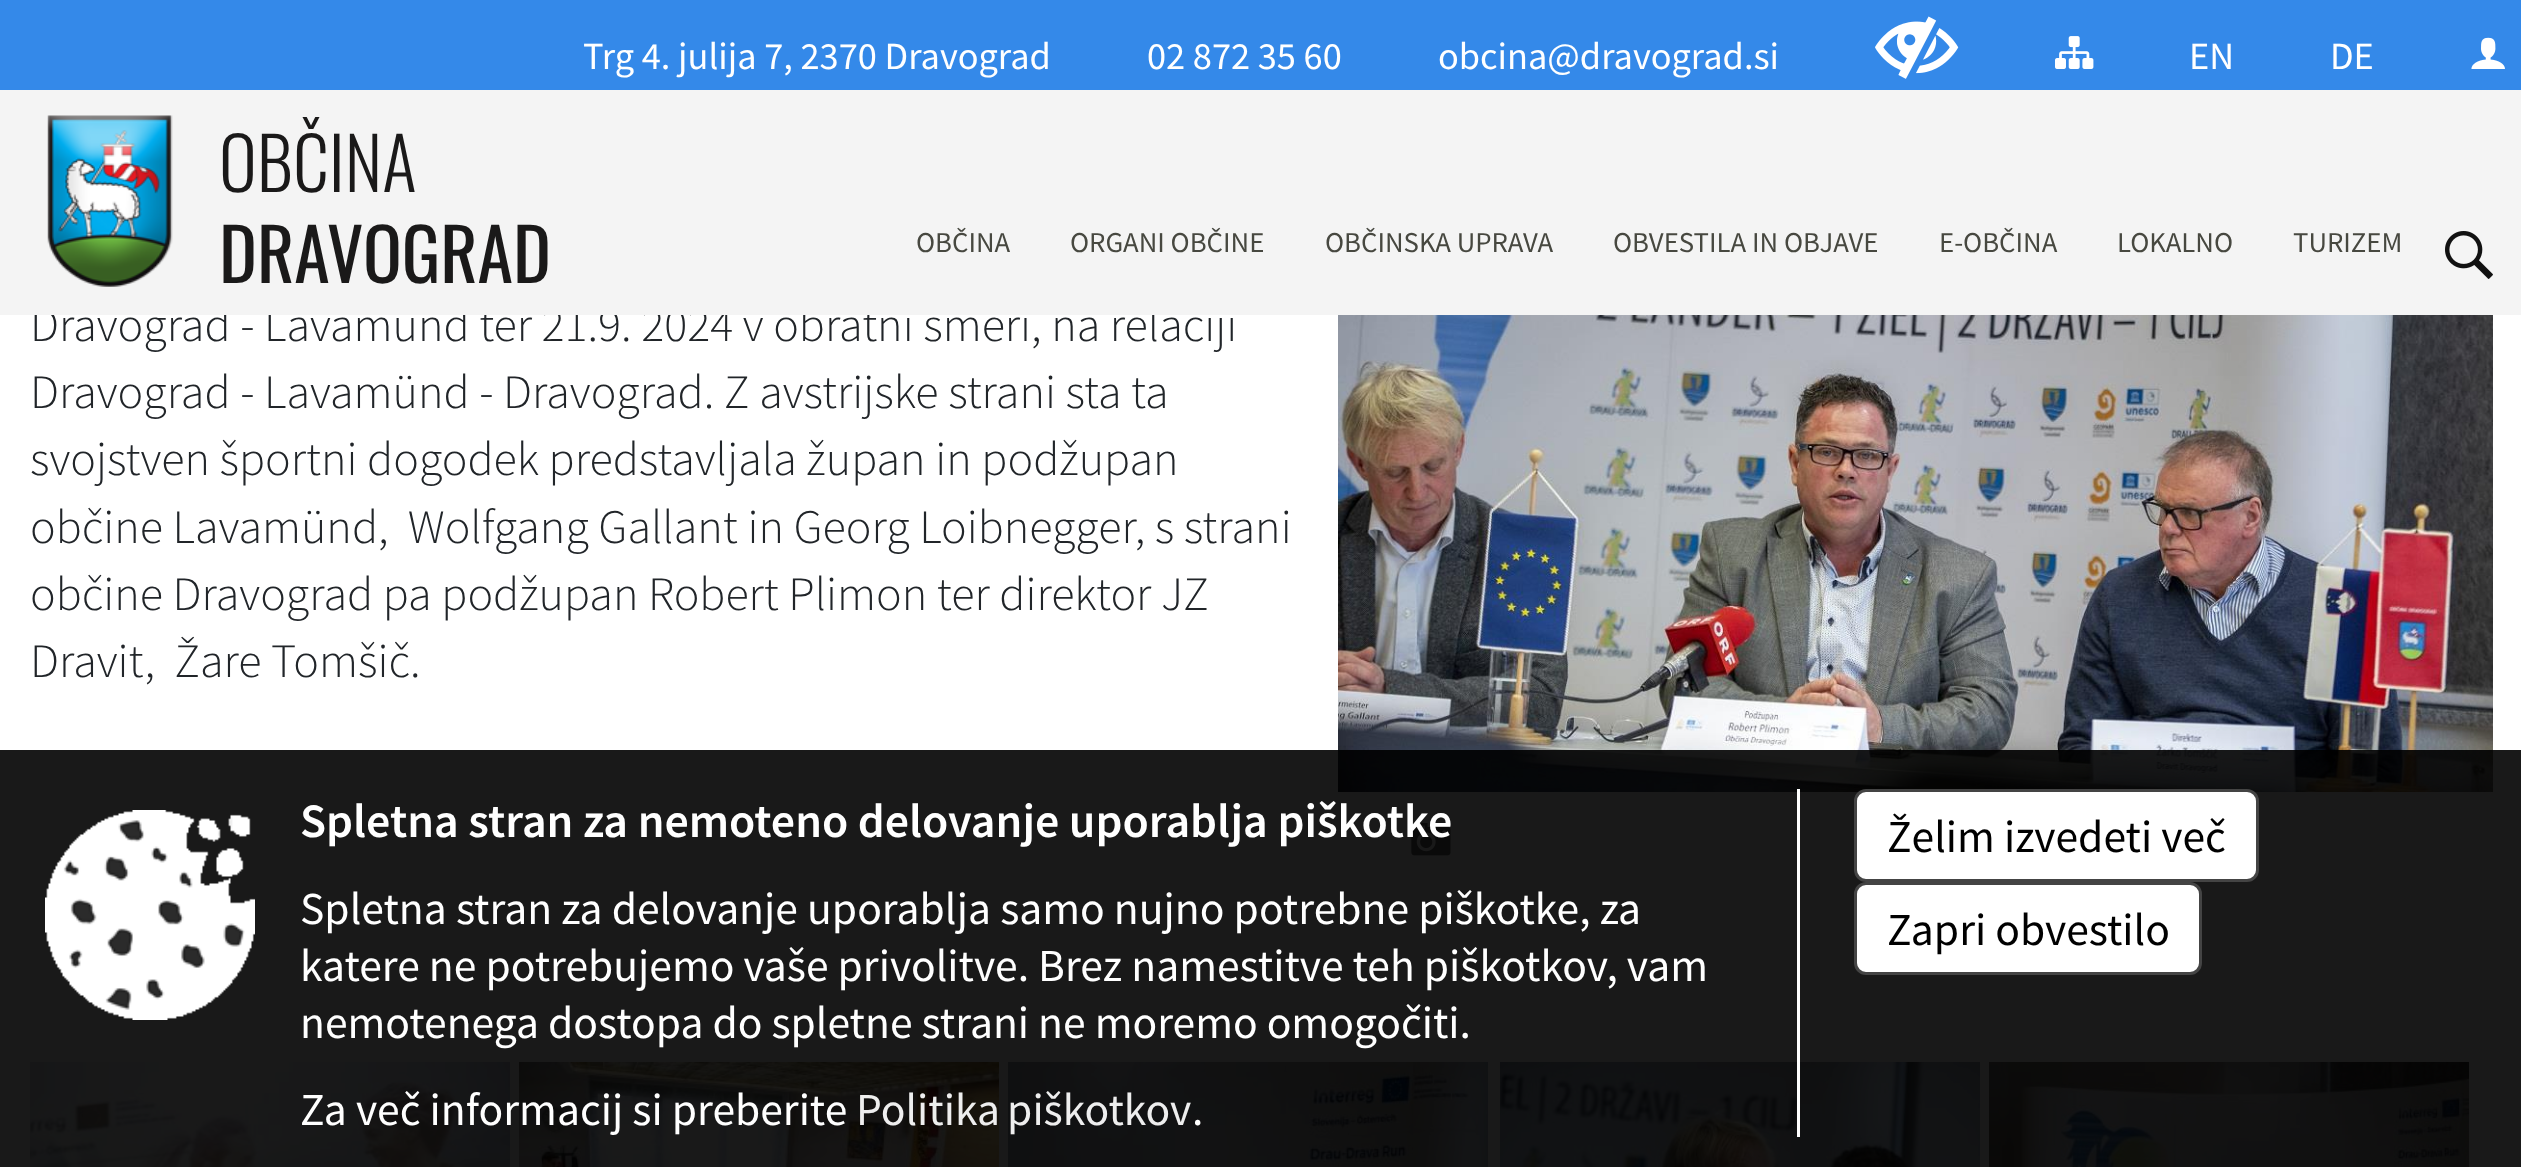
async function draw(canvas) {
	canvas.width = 2521;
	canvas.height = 1167;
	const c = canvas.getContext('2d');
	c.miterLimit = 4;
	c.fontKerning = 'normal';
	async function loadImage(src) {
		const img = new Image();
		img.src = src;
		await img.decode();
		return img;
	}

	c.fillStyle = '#fff';
	c.fillRect(0, 0, 2521, 1167);
	c.font = '300 48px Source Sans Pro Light';
	c.fillStyle = '#212529';
	c.fillText('Dravograd - Lavamünd ter 21.9. 2024 v obratni smeri, na relaciji', 30, 341);
	c.fillStyle = '#f4f4f4';
	c.fillRect(0, 90, 2521, 225);
	c.fillStyle = '#3489e9';
	c.fillRect(0, 0, 2521, 90);
	c.font = '38.4px Source Sans Pro';
	c.fillStyle = '#fff';
	for (const [text, x, y] of [
		['Trg 4. julija 7, 2370 Dravograd', 583, 69],
		['02 872 35 60', 1147, 69],
		['obcina@dravograd.si', 1438, 69],
	]) {
		c.fillText(text, x, y);
	}
	c.drawImage(await loadImage('img1.png'), 1875, 16, 84, 63);
	c.drawImage(await loadImage('img2.png'), 2055, 36, 39, 33);
	c.fillText('EN', 2189, 69);
	c.fillText('DE', 2330, 69);
	c.drawImage(await loadImage('img3.png'), 2471, 37, 34, 32);
	c.drawImage(await loadImage('img4.png'), 47, 115, 126, 172);
	c.font = '300 72px Oswald';
	c.fillStyle = '#1a1919';
	c.fillText('OBČINA', 219, 192);
	c.font = '72px Oswald';
	c.fillText('DRAVOGRAD', 219, 283);
	c.font = '28.75px Source Sans Pro';
	c.fillStyle = '#474840';
	for (const [text, x, y] of [
		['OBČINA', 916, 252],
		['ORGANI OBČINE', 1070, 252],
		['OBČINSKA UPRAVA', 1325, 252],
		['OBVESTILA IN OBJAVE', 1613, 252],
		['E-OBČINA', 1939, 252],
		['LOKALNO', 2117, 252],
		['TURIZEM', 2293, 252],
	]) {
		c.fillText(text, x, y);
	}
	c.drawImage(await loadImage('img5.png'), 2445, 231, 48, 48);
	c.font = '300 48px Source Sans Pro Light';
	c.fillStyle = '#212529';
	for (const [text, x, y] of [
		['Dravograd - Lavamünd - Dravograd. Z avstrijske strani sta ta', 30, 408],
		['svojstven športni dogodek predstavljala župan in podžupan', 30, 475],
		['občine Lavamünd,  Wolfgang Gallant in Georg Loibnegger, s strani', 30, 543],
		['občine Dravograd pa podžupan Robert Plimon ter direktor JZ', 30, 610],
		['Dravit,  Žare Tomšič.', 30, 677],
	]) {
		c.fillText(text, x, y);
	}
	c.drawImage(await loadImage('img6.png'), 1338, 315, 1155, 477);
	c.drawImage(await loadImage('img7.png'), 1411, 822, 40, 34);
	c.drawImage(await loadImage('img8.png'), 30, 1062, 480, 105);
	c.drawImage(await loadImage('img9.png'), 519, 1062, 480, 105);
	c.drawImage(await loadImage('img10.png'), 1008, 1062, 480, 105);
	c.drawImage(await loadImage('img11.png'), 1500, 1062, 480, 105);
	c.drawImage(await loadImage('img12.png'), 1989, 1062, 480, 105);
	c.fillStyle = '#000000e6';
	c.fillRect(0, 750, 2521, 417);
	c.drawImage(await loadImage('img13.png'), 45, 810, 210, 210);
	c.fillStyle = '#fff';
	c.fillRect(1797, 789, 3, 348);
	c.font = '600 47.9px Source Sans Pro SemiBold';
	c.fillText('Spletna stran za nemoteno delovanje uporablja piškotke', 300, 837);
	c.font = '45.6px Source Sans Pro';
	c.fillText('Spletna stran za delovanje uporablja samo nujno potrebne piškotke, za', 300, 924);
	c.wordSpacing = '-0.1px';
	c.fillText('katere ne potrebujemo vaše privolitve. Brez namestitve teh piškotkov, vam', 300, 981);
	c.fillText('nemotenega dostopa do spletne strani ne moremo omogočiti.', 300, 1038);
	c.wordSpacing = '0px';
	c.fillText('Za več informacij si preberite', 300, 1125);
	c.wordSpacing = '-2px';
	c.fillStyle = '#eee';
	c.fillText('Politika piškotkov', 856, 1125);
	c.wordSpacing = '0px';
	c.fillStyle = '#fff';
	c.fillText('.', 1192, 1125);
	c.beginPath();
	c.roundRect(1855.5, 790.5, 402, 90, 10.5);
	c.fill();
	c.strokeStyle = '#444';
	c.lineWidth = 3;
	c.stroke();
	c.fillStyle = '#000';
	c.fillText('Želim izvedeti več', 1887, 852);
	c.fillStyle = '#fff';
	c.beginPath();
	c.roundRect(1855.5, 883.5, 345, 90, 10.5);
	c.fill();
	c.stroke();
	c.fillStyle = '#000';
	c.fillText('Zapri obvestilo', 1887, 945);
}

draw(document.querySelector('canvas'));
